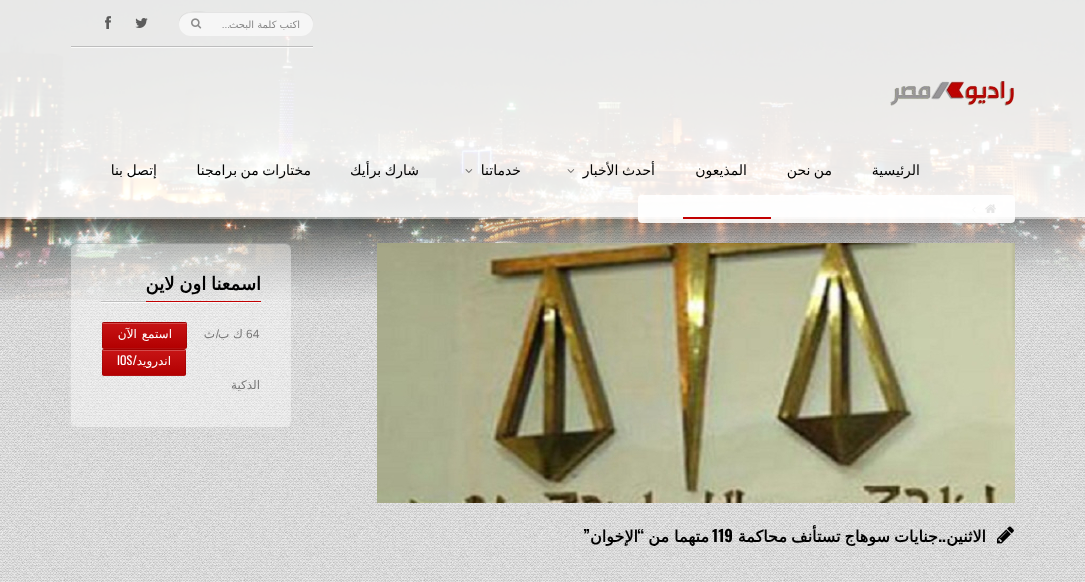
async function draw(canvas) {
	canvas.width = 1085;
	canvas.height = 582;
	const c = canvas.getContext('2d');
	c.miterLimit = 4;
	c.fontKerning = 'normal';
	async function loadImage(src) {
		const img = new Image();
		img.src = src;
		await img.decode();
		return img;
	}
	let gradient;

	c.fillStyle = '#fff';
	c.fillRect(0, 0, 1085, 582);
	c.drawImage(await loadImage('img1.png'), 0, 0, 1085, 582);
	c.drawImage(await loadImage('img2.png'), 0, 0, 1085, 300);
	c.fillStyle = '#ffffffe6';
	c.beginPath();
	c.roundRect(638, 195, 377, 28, 4);
	c.fill();
	c.fillStyle = '#ffffff80';
	c.fillRect(0, 217, 1085, 2);
	c.drawImage(await loadImage('img9.png'), 985, 204, 11, 9);
	c.drawImage(await loadImage('img10.png'), 972, 207, 4, 6);
	for (const [x, y, w, h, color] of [
		[0, 0, 1085, 217, '#ffffffe6'],
		[71, 47, 242, 1, '#ffffffbf'],
		[71, 46, 242, 1, '#bdbdbd'],
	]) {
		c.fillStyle = color;
		c.fillRect(x, y, w, h);
	}
	c.fillStyle = '#ffffff99';
	c.beginPath();
	c.roundRect(179, 12, 134, 24, 12);
	c.fill();
	c.fillStyle = '#00000012';
	c.beginPath();
	c.moveTo(191, 13);
	c.lineTo(301, 13);
	c.bezierCurveTo(308, 13, 313, 18, 313, 24);
	c.bezierCurveTo(314, 8, 292, 12, 283, 12);
	c.lineTo(209, 12);
	c.bezierCurveTo(200, 12, 178, 8, 179, 24);
	c.bezierCurveTo(179, 18, 184, 13, 191, 13);
	c.closePath();
	c.fill();
	c.direction = 'rtl';
	c.font = '10px DejaVu Sans';
	c.fillStyle = '#868686';
	c.fillText('اكتب كلمة البحث', 300, 28);
	c.font = '10px Liberation Sans';
	c.fillText('...', 230, 28);
	c.drawImage(await loadImage('img3.png'), 191, 18, 11, 11);
	c.drawImage(await loadImage('img4.png'), 135, 18, 13, 10);
	c.drawImage(await loadImage('img5.png'), 105, 16, 6, 13);
	c.drawImage(await loadImage('img6.png'), 890, 81, 124, 25);
	c.font = '14px DejaVu Sans';
	c.fillStyle = '#000';
	c.fillText('الرئيسية', 920, 175);
	c.wordSpacing = '-1px';
	c.fillText('من نحن', 832, 175);
	c.wordSpacing = '0px';
	c.fillText('المذيعون', 747, 175);
	c.wordSpacing = '-1px';
	c.fillText('أحدث الأخبار', 655, 175);
	c.drawImage(await loadImage('img7.png'), 567, 169, 8, 4);
	c.wordSpacing = '0px';
	c.fillText('خدماتنا', 521, 175);
	c.drawImage(await loadImage('img8.png'), 465, 169, 8, 4);
	c.wordSpacing = '-1px';
	for (const [text, x, y] of [
		['شارك برأيك', 419, 175],
		['مختارات من برامجنا', 311, 175],
		['إتصل بنا', 157, 175],
	]) {
		c.fillText(text, x, y);
	}
	c.fillStyle = '#c20001';
	c.fillRect(683, 217, 88, 2);
	c.fillStyle = '#ffffff0a';
	c.beginPath();
	c.moveTo(71, 421);
	c.lineTo(71, 422);
	c.bezierCurveTo(71, 425, 74, 428, 77, 428);
	c.lineTo(285, 428);
	c.bezierCurveTo(288, 428, 291, 425, 291, 422);
	c.lineTo(291, 421);
	c.bezierCurveTo(291, 424, 288, 427, 285, 427);
	c.lineTo(77, 427);
	c.bezierCurveTo(74, 427, 71, 424, 71, 421);
	c.closePath();
	c.fill();
	c.fillStyle = '#ffffff66';
	c.beginPath();
	c.roundRect(71, 243, 220, 184, 6);
	c.fill();
	c.fillStyle = '#00000026';
	c.beginPath();
	c.moveTo(77, 244);
	c.lineTo(285, 244);
	c.bezierCurveTo(288, 244, 291, 247, 291, 250);
	c.lineTo(291, 249);
	c.bezierCurveTo(291, 246, 288, 243, 285, 243);
	c.lineTo(77, 243);
	c.bezierCurveTo(74, 243, 71, 246, 71, 249);
	c.lineTo(71, 250);
	c.bezierCurveTo(71, 247, 74, 244, 77, 244);
	c.closePath();
	c.fill();
	c.fillStyle = '#c20001';
	c.fillRect(146, 301, 115, 1);
	c.font = 'bold 18px DejaVu Sans';
	c.fillStyle = '#000';
	c.fillText('اسمعنا اون لاين', 261, 290);
	c.fillStyle = '#ffffffbf';
	c.fillRect(101, 302, 160, 1);
	c.fillStyle = '#bdbdbd';
	c.fillRect(101, 301, 45, 1);
	c.wordSpacing = '0px';
	c.direction = 'ltr';
	c.font = '12px Liberation Sans';
	c.fillStyle = '#7a7a7a';
	c.fillText('64', 246, 338);
	c.direction = 'rtl';
	c.font = '12px DejaVu Sans';
	c.fillText('ك ب', 243, 338);
	c.font = '12px Liberation Sans';
	c.fillText('/', 219, 338);
	c.font = '12px DejaVu Sans';
	c.fillText('ث', 215, 338);
	c.fillStyle = '#c20001';
	c.beginPath();
	c.roundRect(102, 322, 85, 27, 2);
	c.fill();
	gradient = c.createLinearGradient(103, 323, 103, 298);
	gradient.addColorStop(0, '#00000014');
	gradient.addColorStop(0.5, '#80808014');
	gradient.addColorStop(1, '#ffffff14');
	c.fillStyle = gradient;
	c.fillRect(102, 322, 85, 1);
	gradient = c.createLinearGradient(103, 348, 103, 323);
	gradient.addColorStop(0, '#00000014');
	gradient.addColorStop(0.5, '#80808014');
	gradient.addColorStop(1, '#ffffff14');
	c.fillStyle = gradient;
	c.fillRect(102, 323, 85, 25);
	gradient = c.createLinearGradient(103, 373, 103, 348);
	gradient.addColorStop(0, '#00000014');
	gradient.addColorStop(0.5, '#80808014');
	gradient.addColorStop(1, '#ffffff14');
	c.fillStyle = gradient;
	c.fillRect(102, 348, 85, 1);
	c.beginPath();
	c.roundRect(102.5, 322.5, 84, 26, 1.5);
	c.strokeStyle = '#0000001a';
	c.stroke();
	c.fillStyle = '#ffffff3d';
	c.fillRect(103, 323, 83, 1);
	c.wordSpacing = '1px';
	c.fillStyle = '#fff';
	c.fillText('استمع الآن', 172, 338);
	c.fillStyle = '#c20001';
	c.beginPath();
	c.roundRect(102, 349, 84, 27, 2);
	c.fill();
	gradient = c.createLinearGradient(103, 350, 103, 325);
	gradient.addColorStop(0, '#00000014');
	gradient.addColorStop(0.5, '#80808014');
	gradient.addColorStop(1, '#ffffff14');
	c.fillStyle = gradient;
	c.fillRect(102, 349, 84, 1);
	gradient = c.createLinearGradient(103, 375, 103, 350);
	gradient.addColorStop(0, '#00000014');
	gradient.addColorStop(0.5, '#80808014');
	gradient.addColorStop(1, '#ffffff14');
	c.fillStyle = gradient;
	c.fillRect(102, 350, 84, 25);
	gradient = c.createLinearGradient(103, 400, 103, 375);
	gradient.addColorStop(0, '#00000014');
	gradient.addColorStop(0.5, '#80808014');
	gradient.addColorStop(1, '#ffffff14');
	c.fillStyle = gradient;
	c.fillRect(102, 375, 84, 1);
	c.beginPath();
	c.roundRect(102.5, 349.5, 83, 26, 1.5);
	c.stroke();
	c.fillStyle = '#ffffff3d';
	c.fillRect(103, 350, 82, 1);
	c.wordSpacing = '0px';
	c.fillStyle = '#fff';
	c.fillText('اندرويد', 171, 365);
	c.font = '12px Oswald';
	c.fillText('/', 137, 365);
	c.direction = 'ltr';
	c.fillText('IOS', 117, 365);
	c.direction = 'rtl';
	c.font = '12px DejaVu Sans';
	c.fillStyle = '#7a7a7a';
	c.fillText('الذكية', 260, 389);
	c.drawImage(await loadImage('img11.png'), 377, 243, 638, 260);
	c.drawImage(await loadImage('img12.png'), 997, 526, 17, 18);
	c.font = 'bold 16px DejaVu Sans';
	c.fillStyle = '#000';
	c.fillText('الاثنين', 986, 542);
	c.wordSpacing = '-1px';
	c.fillText('جنايات سوهاج تستأنف محاكمة', 938, 542);
	c.wordSpacing = '0px';
	c.font = 'bold 16px Oswald';
	c.fillText('..', 946, 542);
	c.direction = 'ltr';
	c.fillText('119', 712, 542);
	c.direction = 'rtl';
	c.font = 'bold 16px DejaVu Sans';
	c.fillText('متهما من', 709, 542);
	c.font = 'bold 16px Oswald';
	c.fillText('“', 644, 542);
	c.font = 'bold 16px DejaVu Sans';
	c.fillText('الإخوان', 638, 542);
	c.font = 'bold 16px Oswald';
	c.fillText('”', 590, 542);
}

draw(document.querySelector('canvas'));
